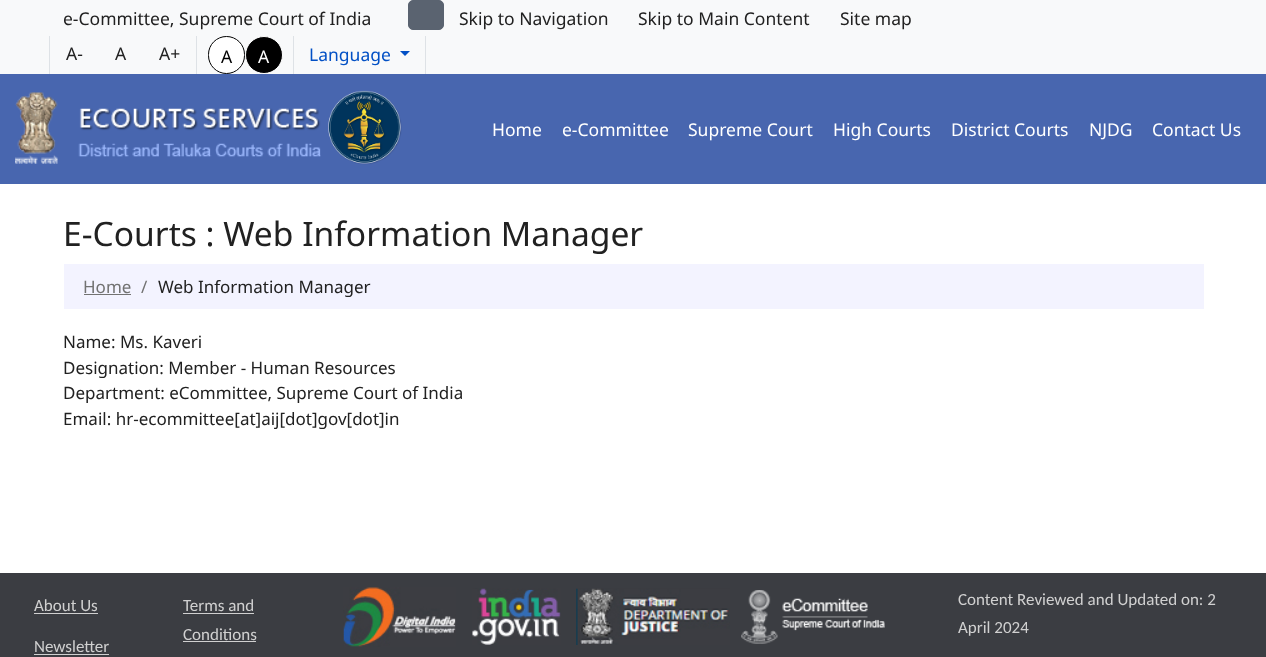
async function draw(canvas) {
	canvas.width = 1266;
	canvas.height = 657;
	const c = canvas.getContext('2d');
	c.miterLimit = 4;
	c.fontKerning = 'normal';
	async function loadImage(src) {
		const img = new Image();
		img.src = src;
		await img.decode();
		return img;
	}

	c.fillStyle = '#fff';
	c.fillRect(0, 0, 1266, 657);
	c.fillStyle = '#f8f9fa';
	c.fillRect(0, 0, 1266, 74);
	c.font = '17.5px Noto Sans';
	c.fillStyle = '#212121';
	c.fillText('e-Committee, Supreme Court of India', 63, 25);
	c.fillStyle = '#5a6370';
	c.beginPath();
	c.roundRect(408.5, 0.5, 35, 29, 4.5);
	c.fill();
	c.strokeStyle = '#5a6370';
	c.stroke();
	c.fillStyle = '#212121';
	for (const [text, x, y] of [
		['Skip to Navigation', 459, 25],
		['Skip to Main Content', 638, 25],
		['Site map', 840, 25],
	]) {
		c.fillText(text, x, y);
	}
	c.fillStyle = '#dee2e6';
	c.fillRect(49, 36, 1, 38);
	c.fillStyle = '#212121';
	for (const [text, x, y] of [
		['A-', 66, 60],
		['A', 115, 60],
		['A+', 159, 60],
	]) {
		c.fillText(text, x, y);
	}
	c.fillStyle = '#dee2e6';
	c.fillRect(196, 36, 1, 38);
	c.fillStyle = '#fff';
	c.beginPath();
	c.roundRect(208.5, 36.5, 36, 37, 18);
	c.fill();
	c.strokeStyle = '#000';
	c.stroke();
	c.fillStyle = '#000';
	c.fillText('A', 221, 63);
	c.beginPath();
	c.arc(264, 55, 18.5, 0, 2 * Math.PI);
	c.fill();
	c.strokeStyle = '#fff';
	c.stroke();
	c.fillStyle = '#fff';
	c.fillText('A', 258, 63);
	c.fillStyle = '#dee2e6';
	c.fillRect(425, 36, 1, 38);
	c.fillRect(293, 36, 1, 38);
	c.fillStyle = '#0250c5';
	c.fillText('Language', 309, 61);
	c.beginPath();
	c.moveTo(400, 51);
	c.lineTo(410, 51);
	c.lineTo(405, 56);
	c.closePath();
	c.fill();
	c.fillStyle = '#4866af';
	c.fillRect(0, 74, 1266, 110);
	c.drawImage(await loadImage('img1.png'), 15, 92, 306, 72);
	c.drawImage(await loadImage('img2.png'), 328, 90, 74, 75);
	c.fillStyle = '#fff';
	for (const [text, x, y] of [
		['Home', 492, 136],
		['e-Committee', 562, 136],
		['Supreme Court', 688, 136],
		['High Courts', 833, 136],
		['District Courts', 951, 136],
		['NJDG', 1089, 136],
		['Contact Us', 1152, 136],
	]) {
		c.fillText(text, x, y);
	}
	c.font = '33.6px Noto Sans';
	c.fillStyle = '#212121';
	c.fillText('E-Courts : Web Information Manager', 63, 246);
	c.fillStyle = '#f3f3ff';
	c.fillRect(64, 264, 1140, 45);
	c.font = '17px Noto Sans';
	c.fillStyle = '#727272';
	c.fillText('Home', 83, 293);
	c.fillRect(84, 294, 47, 1);
	c.fillText('/', 141, 293);
	c.fillStyle = '#212121';
	for (const [text, x, y] of [
		['Web Information Manager', 158, 293],
		['Name: Ms. Kaveri', 63, 348],
		['Designation: Member - Human Resources', 63, 374],
		['Department: eCommittee, Supreme Court of India', 63, 399],
		['Email: hr-ecommittee[at]aij[dot]gov[dot]in', 63, 425],
	]) {
		c.fillText(text, x, y);
	}
	c.fillStyle = '#3b3d42';
	c.fillRect(0, 573, 1266, 84);
	c.font = '17px Carlito';
	c.fillStyle = '#d0d0d0';
	c.fillText('About Us', 34, 611);
	c.fillRect(34, 613, 64, 1);
	c.fillText('Terms and', 183, 611);
	c.fillRect(183, 613, 71, 1);
	c.fillText('Conditions', 183, 640);
	c.fillRect(183, 641, 73, 1);
	c.fillText('Newsletter', 34, 652);
	c.fillRect(34, 654, 75, 1);
	c.drawImage(await loadImage('img3.png'), 343, 587, 113, 60);
	c.drawImage(await loadImage('img4.png'), 472, 588, 89, 57);
	c.drawImage(await loadImage('img5.png'), 576, 588, 154, 57);
	c.drawImage(await loadImage('img6.png'), 741, 590, 144, 54);
	c.fillText('Content Reviewed and Updated on: 2', 958, 605);
	c.fillText('April 2024', 958, 633);
}

draw(document.querySelector('canvas'));
